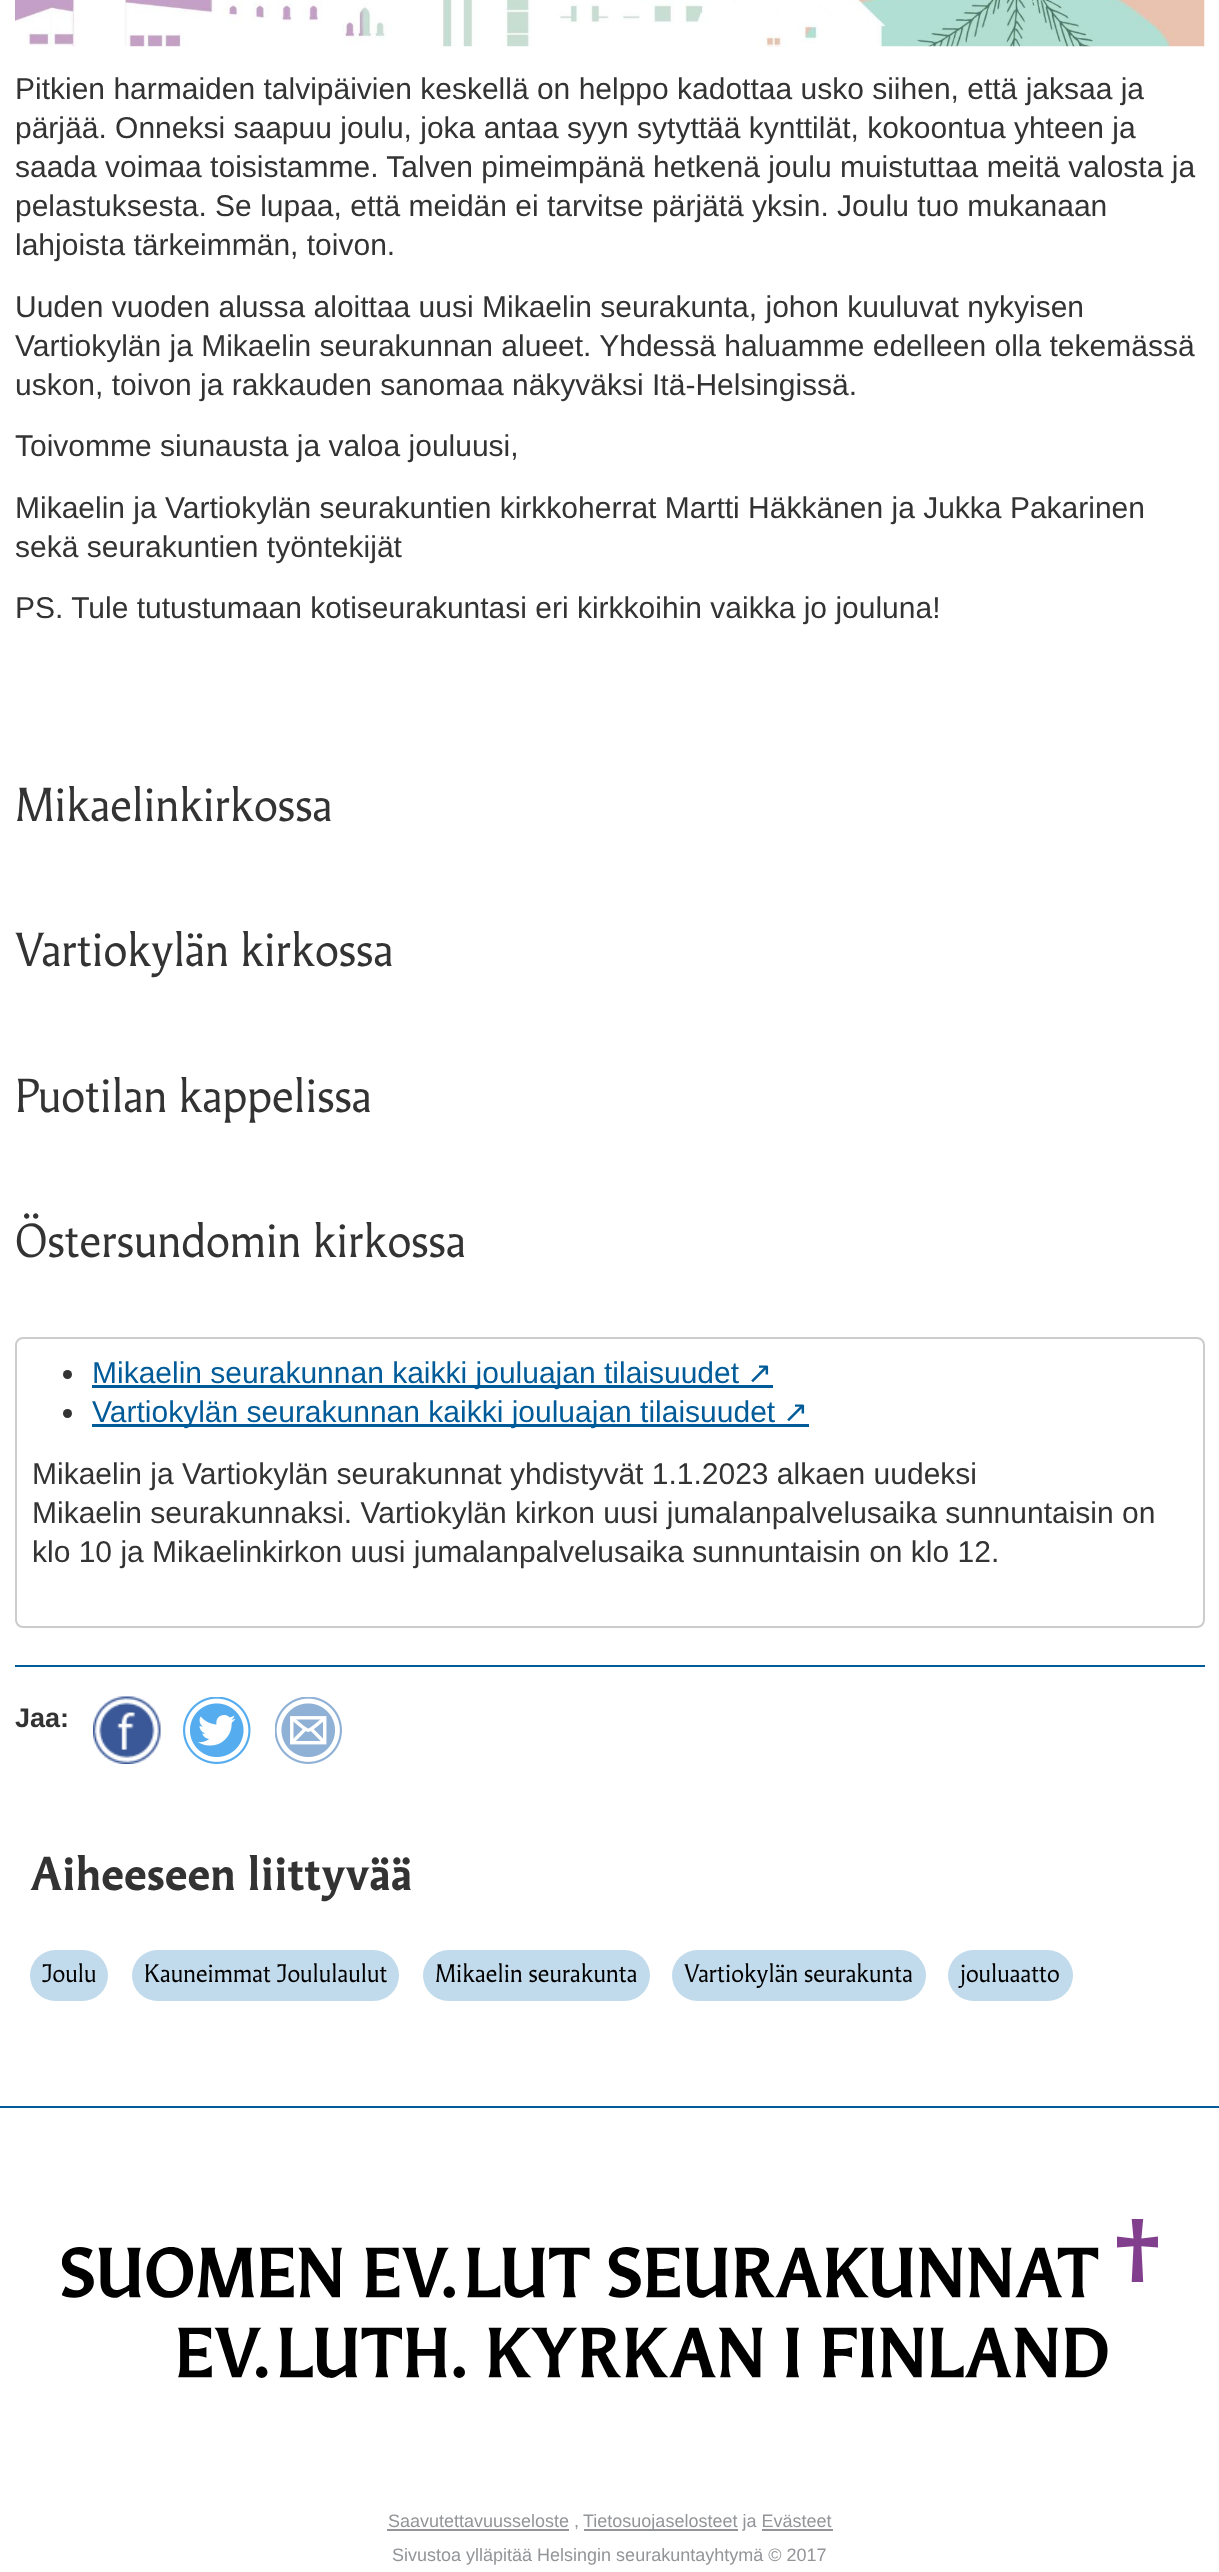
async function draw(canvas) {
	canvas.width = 1219;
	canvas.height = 2572;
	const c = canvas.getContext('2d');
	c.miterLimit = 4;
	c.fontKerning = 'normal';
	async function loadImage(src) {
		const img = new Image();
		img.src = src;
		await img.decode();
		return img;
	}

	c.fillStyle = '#fff';
	c.fillRect(0, 0, 1219, 2572);
	c.drawImage(await loadImage('img1.png'), 15, 0, 1190, 47);
	c.font = '30px Liberation Sans';
	c.fillStyle = '#333';
	for (const [text, x, y] of [
		['Pitkien harmaiden talvipäivien keskellä on helppo kadottaa usko siihen, että jaksaa ja', 15, 99],
		['pärjää. Onneksi saapuu joulu, joka antaa syyn sytyttää kynttilät, kokoontua yhteen ja', 15, 138],
		['saada voimaa toisistamme. Talven pimeimpänä hetkenä joulu muistuttaa meitä valosta ja', 15, 177],
		['pelastuksesta. Se lupaa, että meidän ei tarvitse pärjätä yksin. Joulu tuo mukanaan', 15, 216],
		['lahjoista tärkeimmän, toivon.', 15, 255],
		['Uuden vuoden alussa aloittaa uusi Mikaelin seurakunta, johon kuuluvat nykyisen', 15, 317],
		['Vartiokylän ja Mikaelin seurakunnan alueet. Yhdessä haluamme edelleen olla tekemässä', 15, 356],
		['uskon, toivon ja rakkauden sanomaa näkyväksi Itä-Helsingissä.', 15, 395],
		['Toivomme siunausta ja valoa jouluusi,', 15, 456],
		['Mikaelin ja Vartiokylän seurakuntien kirkkoherrat Martti Häkkänen ja Jukka Pakarinen', 15, 518],
		['sekä seurakuntien työntekijät', 15, 557],
		['PS. Tule tutustumaan kotiseurakuntasi eri kirkkoihin vaikka jo jouluna!', 15, 618],
	]) {
		c.fillText(text, x, y);
	}
	c.font = '45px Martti';
	for (const [text, x, y] of [
		['Mikaelinkirkossa', 15, 821],
		['Vartiokylän kirkossa', 15, 966],
		['Puotilan kappelissa', 15, 1112],
		['Östersundomin kirkossa', 15, 1257],
	]) {
		c.fillText(text, x, y);
	}
	c.beginPath();
	c.roundRect(16, 1338, 1188, 289, 7);
	c.strokeStyle = '#ccc';
	c.lineWidth = 2;
	c.stroke();
	c.beginPath();
	c.arc(67.5, 1374.5, 4.5, 0, 2 * Math.PI);
	c.fill();
	c.fillStyle = '#005b98';
	c.fillRect(92, 1385, 681, 3);
	c.font = '30px Liberation Sans';
	c.fillText('Mikaelin seurakunnan kaikki jouluajan tilaisuudet', 92, 1383);
	c.font = '30px DejaVu Sans';
	c.fillText('↗', 747, 1383);
	c.fillStyle = '#333';
	c.beginPath();
	c.arc(67.5, 1413.5, 4.5, 0, 2 * Math.PI);
	c.fill();
	c.fillStyle = '#005b98';
	c.fillRect(92, 1424, 717, 3);
	c.font = '30px Liberation Sans';
	c.fillText('Vartiokylän seurakunnan kaikki jouluajan tilaisuudet', 92, 1422);
	c.font = '30px DejaVu Sans';
	c.fillText('↗', 783, 1422);
	c.font = '30px Liberation Sans';
	c.fillStyle = '#333';
	for (const [text, x, y] of [
		['Mikaelin ja Vartiokylän seurakunnat yhdistyvät 1.1.2023 alkaen uudeksi', 32, 1484],
		['Mikaelin seurakunnaksi. Vartiokylän kirkon uusi jumalanpalvelusaika sunnuntaisin on', 32, 1523],
		['klo 10 ja Mikaelinkirkon uusi jumalanpalvelusaika sunnuntaisin on klo 12.', 32, 1562],
	]) {
		c.fillText(text, x, y);
	}
	c.fillStyle = '#005b98';
	c.fillRect(15, 1665, 1190, 2);
	c.font = 'bold 27px Liberation Sans';
	c.fillStyle = '#333';
	c.fillText('Jaa:', 15, 1727);
	c.drawImage(await loadImage('img2.png'), 93, 1696, 68, 68);
	c.drawImage(await loadImage('img3.png'), 183, 1697, 68, 67);
	c.drawImage(await loadImage('img4.png'), 275, 1697, 67, 67);
	c.font = 'bold 45px Martti';
	c.fillText('Aiheeseen liittyvää', 30, 1890);
	c.fillStyle = '#c2dbec';
	c.beginPath();
	c.roundRect(30, 1950, 78, 51, 25.5);
	c.fill();
	c.font = '24px Martti';
	c.fillStyle = '#000';
	c.fillText('Joulu', 42, 1982);
	c.fillStyle = '#c2dbec';
	c.beginPath();
	c.roundRect(132, 1950, 267, 51, 25.5);
	c.fill();
	c.fillStyle = '#000';
	c.fillText('Kauneimmat Joululaulut', 144, 1982);
	c.fillStyle = '#c2dbec';
	c.beginPath();
	c.roundRect(423, 1950, 227, 51, 25.5);
	c.fill();
	c.fillStyle = '#000';
	c.fillText('Mikaelin seurakunta', 435, 1982);
	c.fillStyle = '#c2dbec';
	c.beginPath();
	c.roundRect(672, 1950, 254, 51, 25.5);
	c.fill();
	c.fillStyle = '#000';
	c.fillText('Vartiokylän seurakunta', 684, 1982);
	c.fillStyle = '#c2dbec';
	c.beginPath();
	c.roundRect(948, 1950, 125, 51, 25.5);
	c.fill();
	c.fillStyle = '#000';
	c.fillText('jouluaatto', 960, 1982);
	c.fillStyle = '#005b98';
	c.fillRect(0, 2106, 1219, 2);
	c.drawImage(await loadImage('img5.png'), 62, 2219, 1096, 159);
	c.fillStyle = '#939598';
	c.fillRect(387, 2529, 182, 2);
	c.font = '18px Liberation Sans';
	c.fillText('Saavutettavuusseloste ,', 388, 2527);
	c.fillRect(584, 2529, 154, 2);
	c.fillText('Tietosuojaselosteet ja Evästeet', 583, 2527);
	c.fillRect(762, 2529, 71, 2);
	c.fillText('Sivustoa ylläpitää Helsingin seurakuntayhtymä © 2017', 392, 2561);
}

draw(document.querySelector('canvas'));
